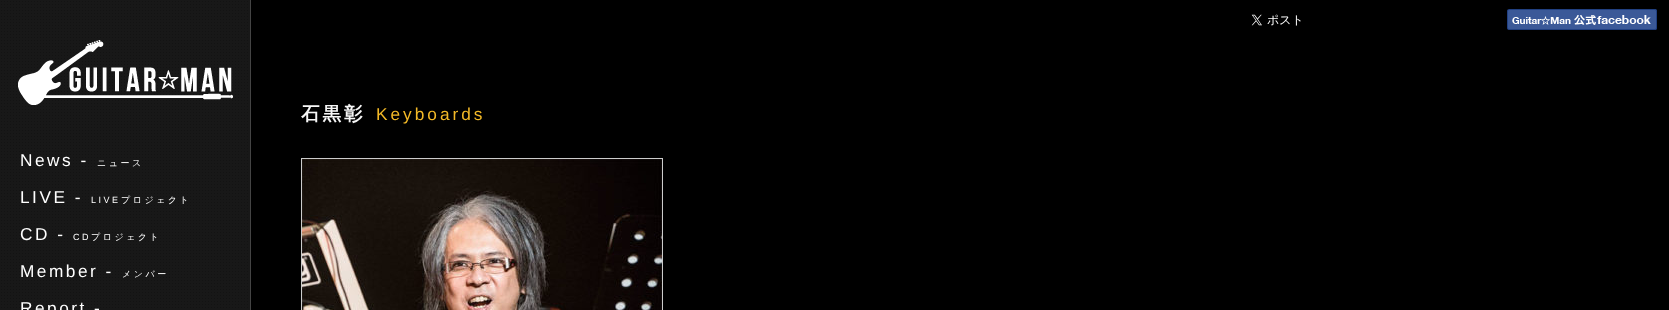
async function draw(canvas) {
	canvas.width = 1669;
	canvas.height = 310;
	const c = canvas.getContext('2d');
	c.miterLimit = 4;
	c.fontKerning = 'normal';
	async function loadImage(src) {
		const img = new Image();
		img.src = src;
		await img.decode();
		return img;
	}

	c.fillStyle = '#000';
	c.fillRect(0, 0, 1669, 310);
	c.drawImage(await loadImage('img1.png'), 1251, 14, 50, 12);
	c.drawImage(await loadImage('img2.png'), 1507, 9, 150, 21);
	c.letterSpacing = '3px';
	c.font = 'bold 18.5px WenQuanYi Zen Hei';
	c.fillStyle = '#f7f7f7';
	c.fillText('石黒彰', 301, 120);
	c.font = '17.25px Liberation Sans';
	c.fillStyle = '#f3b927';
	c.fillText('Keyboards', 376, 120);
	c.strokeStyle = '#ccc';
	c.strokeRect(301.5, 158.5, 361, 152);
	c.drawImage(await loadImage('img3.png'), 302, 159, 360, 151);
	c.fillStyle = '#181818';
	c.fillRect(0, 0, 250, 310);
	c.drawImage(await loadImage('img4.png'), 1, 1, 247, 307);
	c.fillStyle = '#444';
	c.fillRect(250, 0, 1, 310);
	c.drawImage(await loadImage('img5.png'), 18, 40, 215, 65);
	c.letterSpacing = '2.5px';
	c.fillStyle = '#fff';
	c.fillText('News -', 20, 166);
	c.font = '500 9px WenQuanYi Zen Hei';
	c.fillText('ニュース', 97, 166);
	c.font = '17.25px Liberation Sans';
	c.fillText('LIVE -', 20, 203);
	c.font = '9px Liberation Sans';
	c.fillText('LIVE', 91, 203);
	c.font = '500 9px WenQuanYi Zen Hei';
	c.fillText('プロジェクト', 121, 203);
	c.font = '17.25px Liberation Sans';
	c.fillText('CD -', 20, 240);
	c.font = '9px Liberation Sans';
	c.fillText('CD', 73, 240);
	c.font = '500 9px WenQuanYi Zen Hei';
	c.fillText('プロジェクト', 91, 240);
	c.font = '17.25px Liberation Sans';
	c.fillText('Member -', 20, 277);
	c.font = '500 9px WenQuanYi Zen Hei';
	c.fillText('メンバー', 122, 277);
	c.font = '17.25px Liberation Sans';
	c.fillText('Report -', 20, 314);
}

draw(document.querySelector('canvas'));
